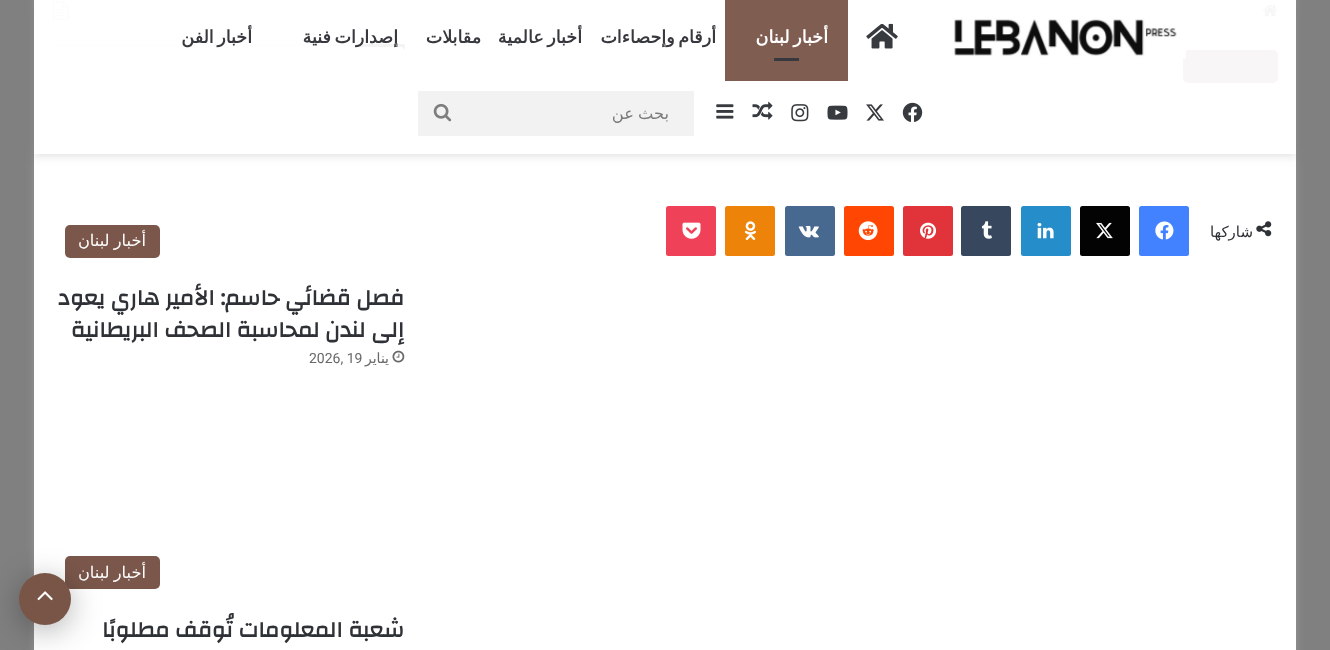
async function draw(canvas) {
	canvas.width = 1330;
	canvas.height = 650;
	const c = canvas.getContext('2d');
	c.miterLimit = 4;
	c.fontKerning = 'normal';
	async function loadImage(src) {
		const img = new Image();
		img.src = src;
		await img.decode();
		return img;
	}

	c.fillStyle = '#808080';
	c.fillRect(0, 0, 1330, 650);
	c.fillStyle = '#ababab80';
	c.filter = 'blur(4.5px)';
	c.beginPath();
	c.rect(34, -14, 1262, 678);
	c.fill();
	c.filter = 'none';
	c.fillStyle = '#fff';
	c.fillRect(34, 0, 1262, 650);
	c.drawImage(await loadImage('img10.png'), 1262, 4, 16, 13);
	c.fillStyle = '#7a574a';
	c.beginPath();
	c.roundRect(1183, 50, 95, 33, 5);
	c.fill();
	c.fillStyle = '#e6e6e6';
	c.fillRect(53, 44, 302, 3);
	c.drawImage(await loadImage('img21.png'), 52, 1, 17, 20);
	c.fillStyle = '#2e3136';
	c.beginPath();
	c.moveTo(399, 44);
	c.lineTo(405, 44);
	c.lineTo(405, 50);
	c.closePath();
	c.fill();
	c.fillRect(355, 44, 50, 3);
	c.save();
	c.beginPath();
	c.moveTo(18, 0);
	c.lineTo(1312, 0);
	c.lineTo(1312, 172);
	c.lineTo(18, 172);
	c.closePath();
	c.moveTo(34, 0);
	c.lineTo(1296, 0);
	c.lineTo(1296, 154);
	c.lineTo(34, 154);
	c.closePath();
	c.clip('evenodd');
	c.fillStyle = '#63636333';
	c.filter = 'blur(5px)';
	c.beginPath();
	c.rect(34, 3, 1262, 153);
	c.fill();
	c.filter = 'none';
	c.restore();
	c.fillStyle = '#fffffff2';
	c.fillRect(34, 1, 1262, 153);
	c.drawImage(await loadImage('img1.png'), 929, 16, 257, 43);
	c.drawImage(await loadImage('img2.png'), 866, 23, 32, 26);
	c.fillStyle = '#805d51';
	c.fillRect(725, 0, 123, 81);
	c.wordSpacing = '-2px';
	c.direction = 'rtl';
	c.font = 'bold 17.5px DejaVu Sans';
	c.fillStyle = '#fff';
	c.fillText('أخبار لبنان', 828, 43);
	c.fillStyle = '#37393e';
	c.fillRect(774, 58, 25, 3);
	c.fillText('أرقام وإحصاءات', 716, 43);
	c.fillText('أخبار عالمية', 582, 43);
	c.wordSpacing = '0px';
	c.fillText('مقابلات', 481, 43);
	c.wordSpacing = '-2px';
	c.fillText('إصدارات فنية', 398, 43);
	c.fillText('أخبار الفن', 252, 43);
	c.drawImage(await loadImage('img3.png'), 902, 102, 21, 20);
	c.drawImage(await loadImage('img4.png'), 866, 104, 18, 17);
	c.drawImage(await loadImage('img5.png'), 827, 105, 21, 15);
	c.drawImage(await loadImage('img6.png'), 791, 104, 18, 18);
	c.drawImage(await loadImage('img7.png'), 752, 101, 21, 19);
	c.drawImage(await loadImage('img8.png'), 716, 104, 18, 15);
	c.fillStyle = '#0000000d';
	c.fillRect(418, 91, 276, 45);
	c.wordSpacing = '-1px';
	c.font = '16.25px DejaVu Sans';
	c.fillStyle = '#7b7b7b';
	c.fillText('بحث عن', 669, 119);
	c.drawImage(await loadImage('img9.png'), 433, 103, 19, 19);
	c.drawImage(await loadImage('img11.png'), 1256, 221, 16, 16);
	c.wordSpacing = '0px';
	c.font = '15px DejaVu Sans';
	c.fillStyle = '#2e3136';
	c.fillText('شاركها', 1253, 237);
	c.fillStyle = '#4281ff';
	c.beginPath();
	c.roundRect(1139, 206, 50, 50, 2.5);
	c.fill();
	c.drawImage(await loadImage('img12.png'), 1155, 221, 19, 19);
	c.fillStyle = '#030303';
	c.beginPath();
	c.roundRect(1080, 206, 50, 50, 2.5);
	c.fill();
	c.drawImage(await loadImage('img13.png'), 1096, 222, 17, 17);
	c.fillStyle = '#258dc9';
	c.beginPath();
	c.roundRect(1021, 206, 50, 50, 2.5);
	c.fill();
	c.drawImage(await loadImage('img14.png'), 1037, 222, 17, 17);
	c.fillStyle = '#37485e';
	c.beginPath();
	c.roundRect(961, 206, 50, 50, 2.5);
	c.fill();
	c.drawImage(await loadImage('img15.png'), 981, 221, 11, 18);
	c.fillStyle = '#e1333a';
	c.beginPath();
	c.roundRect(903, 206, 50, 50, 2.5);
	c.fill();
	c.drawImage(await loadImage('img16.png'), 920, 222, 17, 17);
	c.fillStyle = '#ff4703';
	c.beginPath();
	c.roundRect(844, 206, 50, 50, 2.5);
	c.fill();
	c.drawImage(await loadImage('img17.png'), 858, 221, 20, 20);
	c.fillStyle = '#47688f';
	c.beginPath();
	c.roundRect(785, 206, 50, 50, 2.5);
	c.fill();
	c.drawImage(await loadImage('img18.png'), 798, 225, 21, 13);
	c.fillStyle = '#ee830a';
	c.beginPath();
	c.roundRect(725, 206, 50, 50, 2.5);
	c.fill();
	c.drawImage(await loadImage('img19.png'), 744, 221, 12, 20);
	c.fillStyle = '#ef4258';
	c.beginPath();
	c.roundRect(666, 206, 50, 50, 2.5);
	c.fill();
	c.drawImage(await loadImage('img20.png'), 682, 222, 19, 17);
	c.fillStyle = '#7a574a';
	c.beginPath();
	c.roundRect(65, 225, 95, 33, 5);
	c.fill();
	c.wordSpacing = '-1px';
	c.font = '16.25px DejaVu Sans';
	c.fillStyle = '#fff';
	c.fillText('أخبار لبنان', 146, 246);
	c.wordSpacing = '0px';
	c.font = 'bold 22.5px Changa';
	c.fillStyle = '#2e3136';
	c.fillText('فصل قضائي حاسم: الأمير هاري يعود', 404, 305);
	c.fillText('إلى لندن لمحاسبة الصحف البريطانية', 404, 337);
	c.drawImage(await loadImage('img22.png'), 392, 350, 13, 13);
	c.font = '14px DejaVu Sans';
	c.fillStyle = '#686868';
	c.fillText('يناير', 389, 363);
	c.direction = 'ltr';
	c.font = '14px Roboto';
	c.fillText('2026, 19', 309, 363);
	c.fillStyle = '#7a574a';
	c.beginPath();
	c.roundRect(65, 556, 95, 33, 5);
	c.fill();
	c.wordSpacing = '-1px';
	c.direction = 'rtl';
	c.font = '16.25px DejaVu Sans';
	c.fillStyle = '#fff';
	c.fillText('أخبار لبنان', 146, 578);
	c.wordSpacing = '0px';
	c.font = 'bold 22.5px Changa';
	c.fillStyle = '#2e3136';
	c.fillText('شعبة المعلومات تُوقف مطلوبًا', 404, 637);
	c.fillStyle = '#0000004d';
	c.filter = 'blur(15.5px)';
	c.beginPath();
	c.roundRect(19, 579, 52, 52, 26);
	c.fill();
	c.filter = 'none';
	c.fillStyle = '#795548';
	c.beginPath();
	c.arc(45, 599, 26, 0, 2 * Math.PI);
	c.fill();
	c.drawImage(await loadImage('img23.png'), 37, 591, 16, 10);
}

draw(document.querySelector('canvas'));
